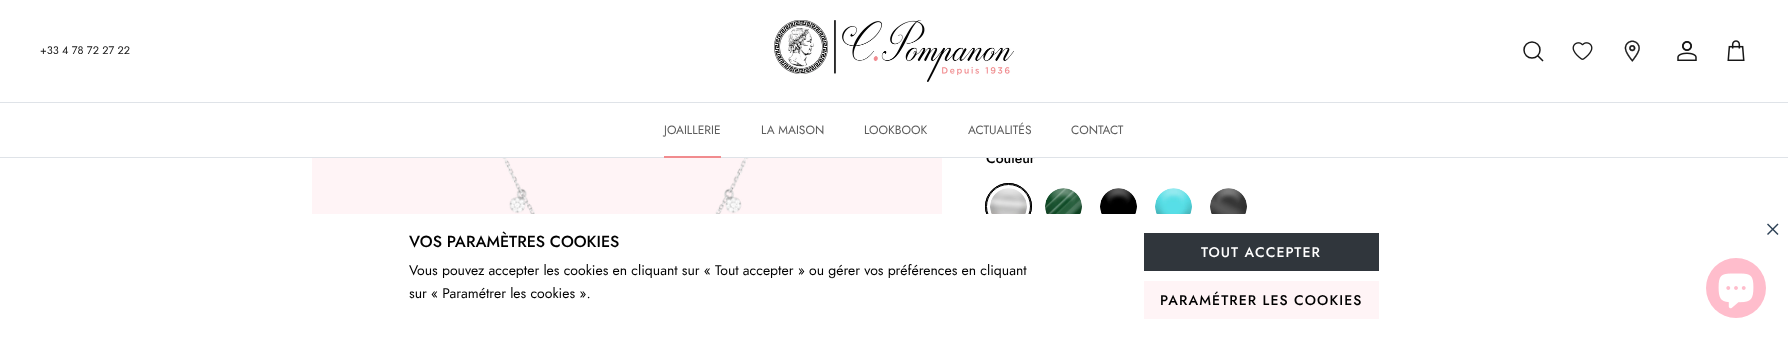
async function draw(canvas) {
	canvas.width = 1788;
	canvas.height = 339;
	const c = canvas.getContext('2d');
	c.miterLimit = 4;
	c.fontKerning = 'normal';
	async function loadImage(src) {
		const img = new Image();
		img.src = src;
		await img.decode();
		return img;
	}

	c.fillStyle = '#fff';
	c.fillRect(0, 0, 1788, 339);
	c.fillStyle = '#dfe3e8';
	c.fillRect(0, 102, 1788, 1);
	c.font = '11px Jost';
	c.fillStyle = '#171717';
	c.fillText('+33 4 78 72 27 22', 40, 54);
	c.drawImage(await loadImage('img1.png'), 774, 20, 240, 62);
	c.beginPath();
	c.arc(1532, 50, 8, 0, 2 * Math.PI);
	c.strokeStyle = '#171717';
	c.lineWidth = 1.5;
	c.stroke();
	c.beginPath();
	c.moveTo(1538, 56);
	c.lineTo(1542.5, 60.5);
	c.lineCap = 'square';
	c.stroke();
	c.drawImage(await loadImage('img2.png'), 1572, 42, 21, 18);
	c.drawImage(await loadImage('img3.png'), 1624, 40, 16, 22);
	c.drawImage(await loadImage('img4.png'), 1677, 41, 20, 20);
	c.drawImage(await loadImage('img5.png'), 1727, 40, 18, 21);
	c.font = '500 14px Jost';
	c.fillStyle = '#000';
	c.fillText('Couleur', 986, 163);
	c.fillStyle = '#dfe3e8';
	c.fillRect(0, 157, 1788, 1);
	c.fillStyle = '#fff';
	c.fillRect(986, 152, 49, 5);
	c.font = '12px Jost';
	c.fillStyle = '#5c5c5c';
	c.fillText('JOAILLERIE', 664, 134);
	c.fillStyle = '#f18b8e';
	c.fillRect(664, 156, 57, 2);
	c.fillStyle = '#5c5c5c';
	for (const [text, x, y] of [
		['LA MAISON', 761, 134],
		['LOOKBOOK', 864, 134],
		['ACTUALITÉS', 968, 134],
		['CONTACT', 1071, 134],
	]) {
		c.fillText(text, x, y);
	}
	c.fillStyle = '#fff4f6';
	c.fillRect(312, 158, 630, 56);
	c.drawImage(await loadImage('img6.png'), 502, 158, 247, 56);
	c.beginPath();
	c.arc(1008.5, 206.5, 23, 0, 2 * Math.PI);
	c.strokeStyle = '#000';
	c.lineWidth = 1;
	c.stroke();
	c.drawImage(await loadImage('img7.png'), 990, 188, 37, 26);
	c.beginPath();
	c.arc(1008.5, 206.5, 23, 0, 2 * Math.PI);
	c.stroke();
	c.beginPath();
	c.arc(1008.5, 206.5, 22, 0, 2 * Math.PI);
	c.stroke();
	c.drawImage(await loadImage('img8.png'), 1045, 188, 37, 26);
	c.drawImage(await loadImage('img9.png'), 1100, 188, 37, 26);
	c.drawImage(await loadImage('img10.png'), 1155, 188, 37, 26);
	c.drawImage(await loadImage('img11.png'), 1210, 188, 37, 26);
	c.fillStyle = '#fff';
	c.fillRect(986, 214, 45, 16);
	c.fillStyle = '#2d4156';
	c.beginPath();
	c.moveTo(1777.5, 223.5);
	c.lineTo(1778.5, 224.5);
	c.lineTo(1768, 235);
	c.lineTo(1767, 234);
	c.closePath();
	c.fill();
	c.beginPath();
	c.moveTo(1767, 224.5);
	c.lineTo(1768, 223.5);
	c.lineTo(1778.5, 234);
	c.lineTo(1777.5, 235);
	c.closePath();
	c.fill();
	c.font = '500 16px Jost';
	c.fillStyle = '#000';
	c.fillText('VOS PARAMÈTRES COOKIES', 409, 247);
	c.font = '14px Jost';
	c.fillText('Vous pouvez accepter les cookies en cliquant sur « Tout accepter » ou gérer vos préférences en cliquant', 409, 275);
	c.fillText('sur « Paramétrer les cookies ».', 409, 298);
	c.fillStyle = '#30363c';
	c.fillRect(1144, 233, 235, 38);
	c.letterSpacing = '1.1px';
	c.font = '500 14px Jost';
	c.fillStyle = '#fff';
	c.fillText('TOUT ACCEPTER', 1201, 257);
	c.fillStyle = '#fff4f6';
	c.fillRect(1144, 281, 235, 38);
	c.fillStyle = '#000';
	c.fillText('PARAMÉTRER LES COOKIES', 1160, 305);
	c.fillStyle = '#ffbdcc';
	c.beginPath();
	c.arc(1736, 288, 30, 0, 2 * Math.PI);
	c.fill();
	c.drawImage(await loadImage('img12.png'), 1718, 273, 36, 36);
}

draw(document.querySelector('canvas'));
